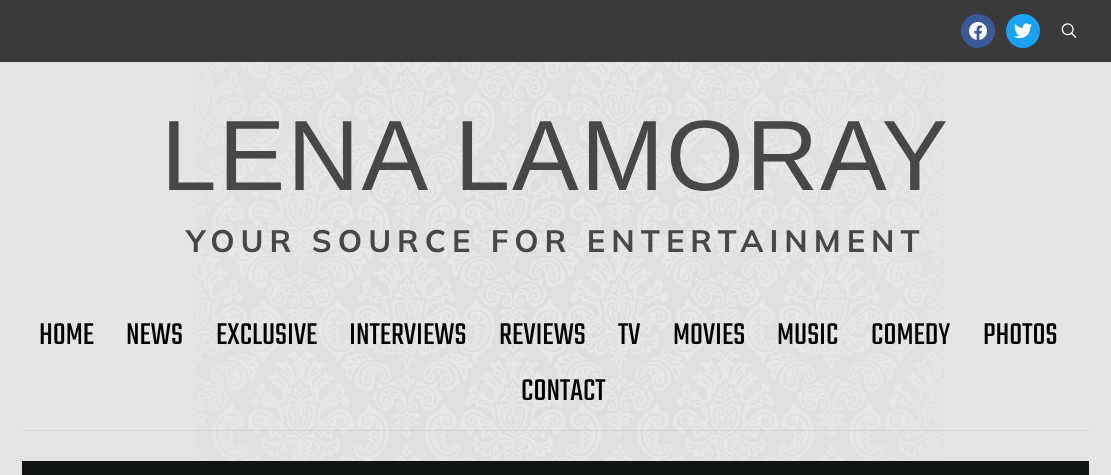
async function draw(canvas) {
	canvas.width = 1111;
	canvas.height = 475;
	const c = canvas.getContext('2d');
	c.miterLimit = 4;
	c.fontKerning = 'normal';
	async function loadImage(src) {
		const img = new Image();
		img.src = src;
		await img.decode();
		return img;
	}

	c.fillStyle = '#e5e5e5';
	c.fillRect(0, 0, 1111, 475);
	c.drawImage(await loadImage('img1.png'), 193, 62, 751, 399);
	c.fillStyle = '#3a3a3a';
	c.fillRect(0, 0, 1111, 62);
	c.fillStyle = '#3b5998';
	c.beginPath();
	c.arc(978, 31, 17, 0, 2 * Math.PI);
	c.fill();
	c.drawImage(await loadImage('img2.png'), 969, 22, 18, 18);
	c.fillStyle = '#1da1f2';
	c.beginPath();
	c.arc(1023, 31, 17, 0, 2 * Math.PI);
	c.fill();
	c.drawImage(await loadImage('img3.png'), 1014, 23, 18, 16);
	c.drawImage(await loadImage('img4.png'), 1061, 23, 16, 15);
	c.letterSpacing = '2px';
	c.font = '100px Liberation Sans';
	c.fillStyle = '#474747';
	c.fillText('LENA LAMORAY', 161, 190);
	c.letterSpacing = '6px';
	c.font = 'bold 31px Mulish';
	c.fillText('YOUR SOURCE FOR ENTERTAINMENT', 186, 252);
	c.fillStyle = '#0000000f';
	c.fillRect(22, 430, 1067, 1);
	c.letterSpacing = '0px';
	c.font = '33px Teko';
	c.fillStyle = '#000';
	for (const [text, x, y] of [
		['HOME', 39, 344],
		['NEWS', 126, 344],
		['EXCLUSIVE', 216, 344],
		['INTERVIEWS', 349, 344],
		['REVIEWS', 499, 344],
		['TV', 618, 344],
		['MOVIES', 673, 344],
		['MUSIC', 777, 344],
		['COMEDY', 871, 344],
		['PHOTOS', 983, 344],
		['CONTACT', 521, 400],
	]) {
		c.fillText(text, x, y);
	}
	c.fillStyle = '#121516';
	c.fillRect(22, 461, 1067, 14);
}

draw(document.querySelector('canvas'));
